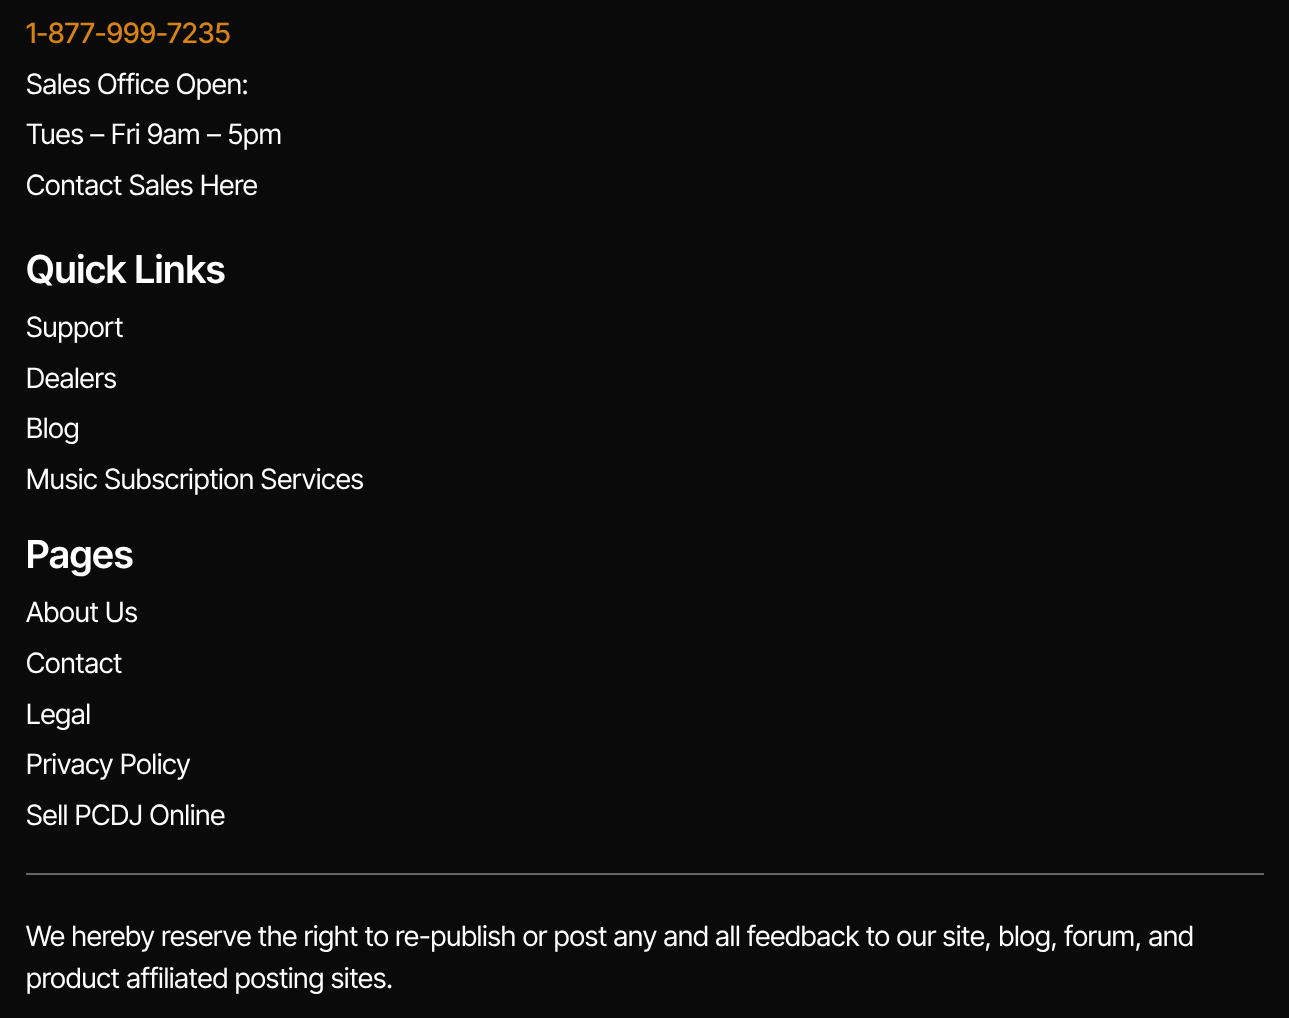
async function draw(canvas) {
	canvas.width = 1289;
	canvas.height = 1018;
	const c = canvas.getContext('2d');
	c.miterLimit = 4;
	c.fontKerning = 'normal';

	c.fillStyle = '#0a0a0a';
	c.fillRect(0, 0, 1289, 1018);
	c.font = '500 28px Inter Tight';
	c.fillStyle = '#d78314';
	c.fillText('1-877-999-7235', 26, 43);
	c.font = '28px Inter Tight';
	c.fillStyle = '#fff';
	for (const [text, x, y] of [
		['Sales Office Open:', 26, 94],
		['Tues – Fri 9am – 5pm', 26, 144],
		['Contact Sales Here', 26, 195],
	]) {
		c.fillText(text, x, y);
	}
	c.font = '600 38.5px Inter Tight';
	c.fillText('Quick Links', 26, 283);
	c.font = '28px Inter Tight';
	for (const [text, x, y] of [
		['Support', 26, 337],
		['Dealers', 26, 388],
		['Blog', 26, 438],
		['Music Subscription Services', 26, 489],
	]) {
		c.fillText(text, x, y);
	}
	c.font = '600 38.5px Inter Tight';
	c.fillText('Pages', 26, 568);
	c.font = '28px Inter Tight';
	for (const [text, x, y] of [
		['About Us', 26, 622],
		['Contact', 26, 673],
		['Legal', 26, 724],
		['Privacy Policy', 26, 774],
		['Sell PCDJ Online', 26, 825],
	]) {
		c.fillText(text, x, y);
	}
	c.fillStyle = '#666';
	c.fillRect(26, 873, 1238, 2);
	c.fillStyle = '#fff';
	c.fillText('We hereby reserve the right to re-publish or post any and all feedback to our site, blog, forum, and', 26, 946);
	c.fillText('product affiliated posting sites.', 26, 988);
}

draw(document.querySelector('canvas'));
